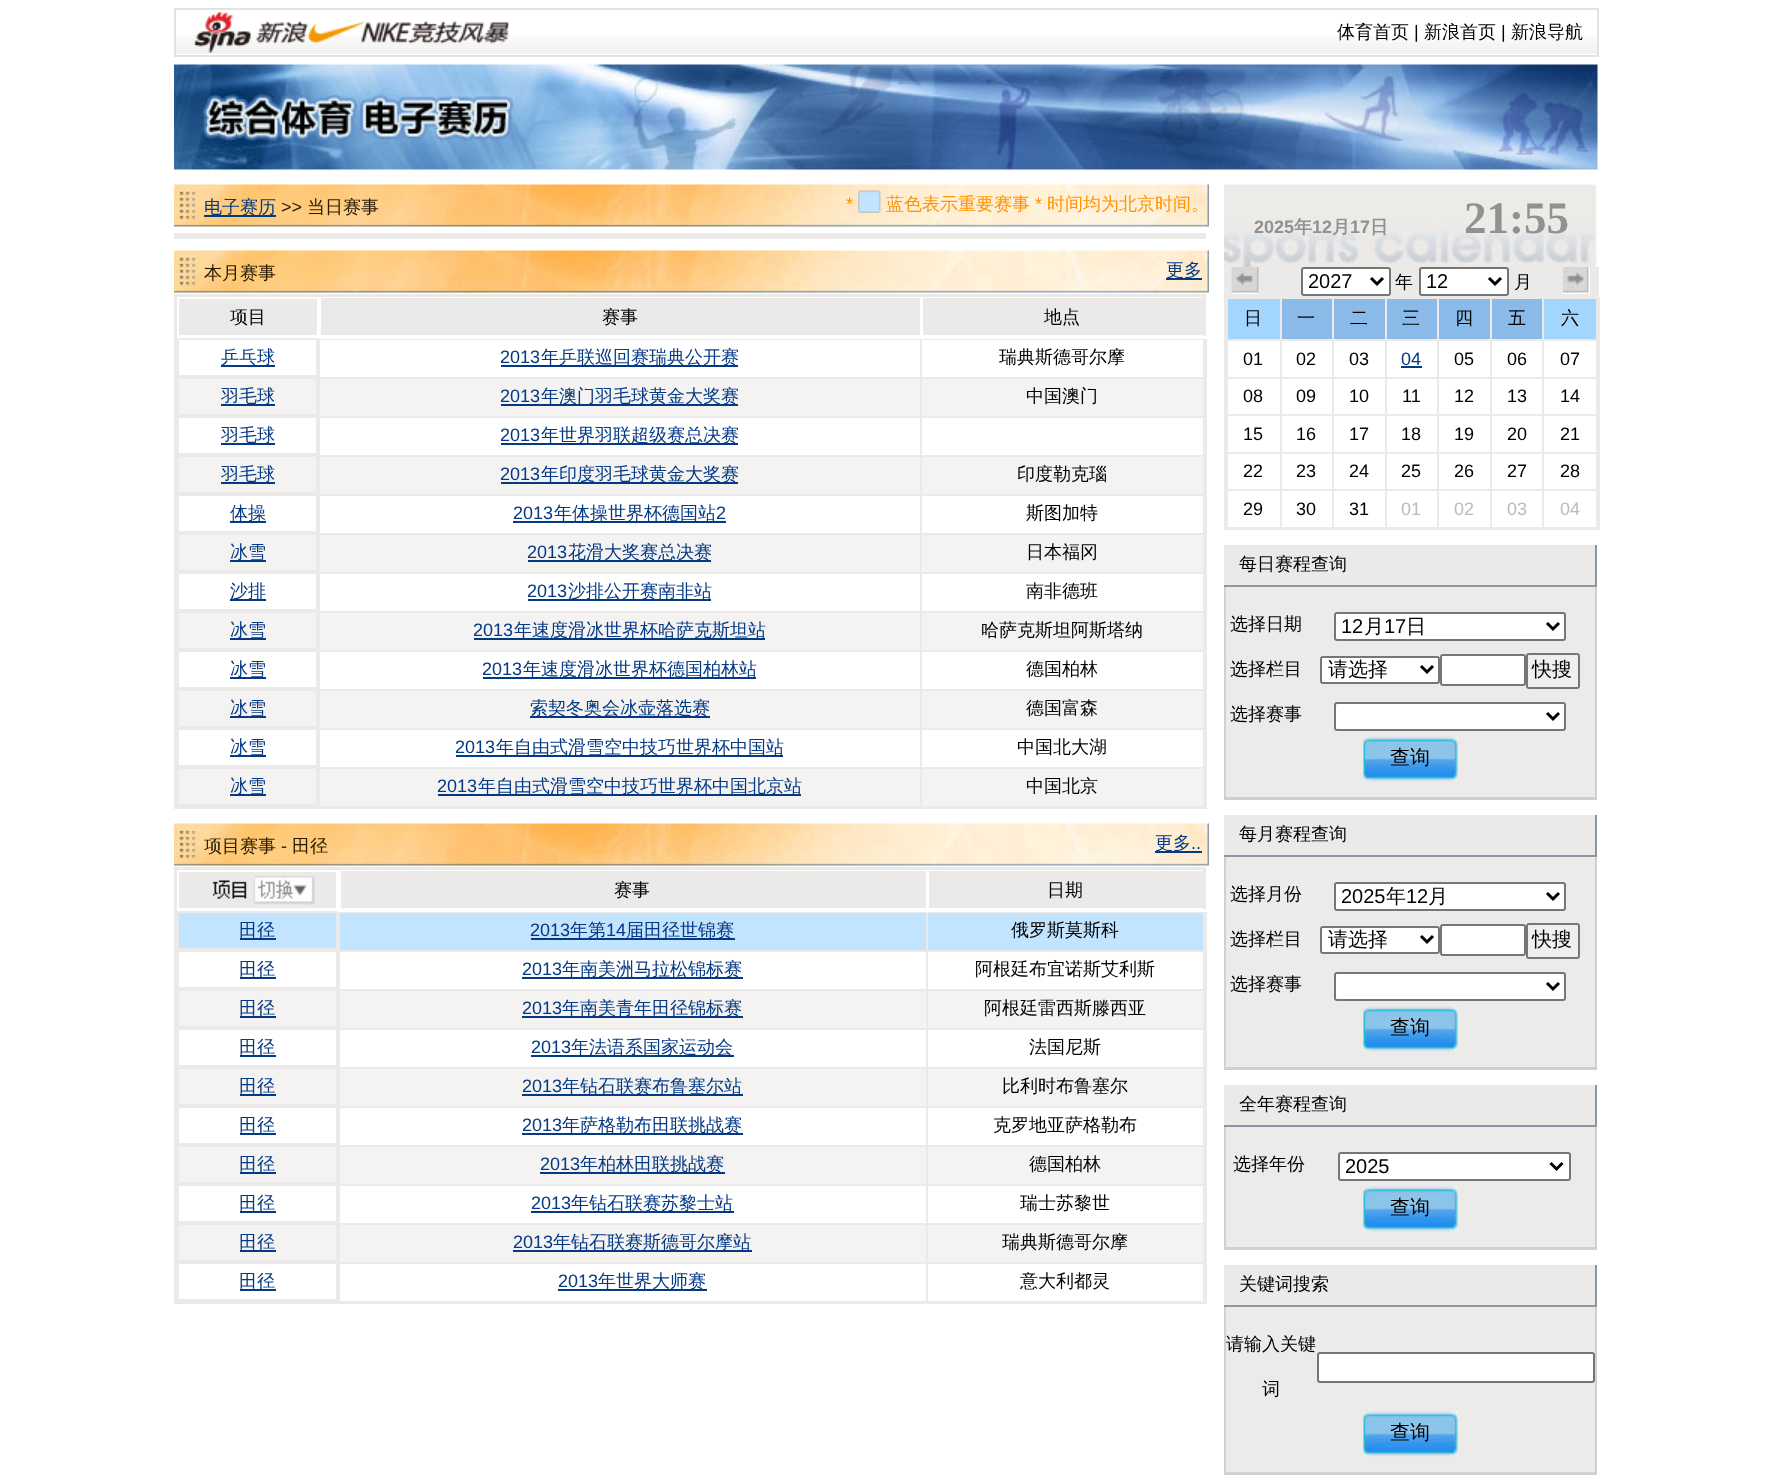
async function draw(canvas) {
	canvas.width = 1773;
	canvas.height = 1482;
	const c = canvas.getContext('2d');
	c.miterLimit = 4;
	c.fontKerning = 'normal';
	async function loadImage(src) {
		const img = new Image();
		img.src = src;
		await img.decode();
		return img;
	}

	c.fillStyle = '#fff';
	c.fillRect(0, 0, 1773, 1482);
	c.drawImage(await loadImage('img1.png'), 176, 35, 1421, 19);
	c.strokeStyle = '#e3e3e3';
	c.lineWidth = 2;
	c.strokeRect(175, 9, 1423, 47);
	c.drawImage(await loadImage('img2.png'), 194, 11, 57, 42);
	c.drawImage(await loadImage('img3.png'), 256, 21, 253, 23);
	c.font = '500 18px WenQuanYi Zen Hei';
	c.fillStyle = '#000';
	c.fillText('体育首页', 1337, 38);
	c.font = '18px Liberation Sans';
	c.fillText('|', 1414, 38);
	c.font = '500 18px WenQuanYi Zen Hei';
	c.fillText('新浪首页', 1424, 38);
	c.font = '18px Liberation Sans';
	c.fillText('|', 1501, 38);
	c.font = '500 18px WenQuanYi Zen Hei';
	c.fillText('新浪导航', 1511, 38);
	c.drawImage(await loadImage('img4.png'), 174, 64, 1424, 106);
	c.drawImage(await loadImage('img5.png'), 174, 184, 1035, 44);
	c.fillStyle = '#043984';
	c.fillRect(204, 215, 72, 2);
	c.fillText('电子赛历', 204, 213);
	c.font = '18px Liberation Sans';
	c.fillStyle = '#281902';
	c.fillText('>>', 281, 213);
	c.font = '500 18px WenQuanYi Zen Hei';
	c.fillText('当日赛事', 307, 213);
	c.font = '18px Liberation Sans';
	c.fillStyle = '#ff9300';
	c.fillText('*', 846, 210);
	c.drawImage(await loadImage('img6.png'), 858, 190, 23, 23);
	c.font = '500 18px WenQuanYi Zen Hei';
	c.fillText('蓝色表示重要赛事', 886, 210);
	c.font = '18px Liberation Sans';
	c.fillText('*', 1035, 210);
	c.font = '500 18px WenQuanYi Zen Hei';
	c.fillText('时间均为北京时间。', 1047, 210);
	c.fillStyle = '#eceae8';
	c.fillRect(174, 233, 1032, 6);
	c.drawImage(await loadImage('img5.png'), 174, 250, 1035, 44);
	c.fillStyle = '#281902';
	c.fillText('本月赛事', 204, 279);
	c.fillStyle = '#043984';
	c.fillRect(1166, 278, 36, 2);
	c.fillText('更多', 1166, 276);
	for (const [x, y, w, h, color] of [
		[174, 294, 1032, 3, '#eceae8'],
		[920, 339, 286, 1, '#eceae8'],
		[920, 377, 286, 2, '#eceae8'],
		[920, 416, 286, 2, '#eceae8'],
		[920, 455, 286, 2, '#eceae8'],
		[920, 494, 286, 2, '#eceae8'],
		[920, 533, 286, 2, '#eceae8'],
		[920, 572, 286, 2, '#eceae8'],
		[920, 611, 286, 2, '#eceae8'],
		[920, 650, 286, 2, '#eceae8'],
		[920, 689, 286, 2, '#eceae8'],
		[920, 728, 286, 2, '#eceae8'],
		[920, 767, 286, 2, '#eceae8'],
		[1203, 294, 3, 515, '#eceae8'],
		[920, 767, 2, 42, '#eceae8'],
		[318, 767, 603, 2, '#eceae8'],
		[318, 767, 2, 42, '#eceae8'],
		[174, 806, 1032, 3, '#eceae8'],
		[174, 294, 3, 515, '#eceae8'],
		[179, 299, 138, 36, '#eceae8'],
	]) {
		c.fillStyle = color;
		c.fillRect(x, y, w, h);
	}
	c.fillStyle = '#000';
	c.fillText('项目', 230, 323);
	for (const [x, y, w, h, color] of [
		[321, 298, 599, 37, '#eceae8'],
		[920, 728, 2, 40, '#eceae8'],
		[318, 728, 603, 2, '#eceae8'],
		[920, 689, 2, 40, '#eceae8'],
		[318, 689, 603, 2, '#eceae8'],
		[920, 650, 2, 40, '#eceae8'],
		[318, 650, 603, 2, '#eceae8'],
		[920, 611, 2, 40, '#eceae8'],
		[318, 611, 603, 2, '#eceae8'],
		[920, 572, 2, 40, '#eceae8'],
		[318, 572, 603, 2, '#eceae8'],
		[920, 533, 2, 40, '#eceae8'],
		[318, 533, 603, 2, '#eceae8'],
		[920, 494, 2, 40, '#eceae8'],
		[318, 494, 603, 2, '#eceae8'],
		[920, 455, 2, 40, '#eceae8'],
		[318, 455, 603, 2, '#eceae8'],
		[920, 416, 2, 40, '#eceae8'],
		[318, 416, 603, 2, '#eceae8'],
		[920, 377, 2, 40, '#eceae8'],
		[318, 377, 603, 2, '#eceae8'],
		[920, 338, 2, 40, '#eceae8'],
		[318, 339, 603, 1, '#eceae8'],
		[318, 728, 2, 40, '#eceae8'],
		[318, 689, 2, 40, '#eceae8'],
		[318, 650, 2, 40, '#eceae8'],
		[318, 611, 2, 40, '#eceae8'],
		[318, 572, 2, 40, '#eceae8'],
		[318, 533, 2, 40, '#eceae8'],
		[318, 494, 2, 40, '#eceae8'],
		[318, 455, 2, 40, '#eceae8'],
		[318, 416, 2, 40, '#eceae8'],
		[318, 377, 2, 40, '#eceae8'],
		[318, 338, 2, 40, '#eceae8'],
		[318, 338, 2, 1, '#fff'],
	]) {
		c.fillStyle = color;
		c.fillRect(x, y, w, h);
	}
	c.fillStyle = '#000';
	c.fillText('赛事', 602, 323);
	for (const [x, y, w, h, color] of [
		[923, 298, 280, 37, '#eceae8'],
		[1206, 338, 1, 471, '#eceae8'],
		[1206, 338, 1, 1, '#fff'],
		[920, 338, 2, 1, '#fff'],
		[1203, 336, 3, 3, '#fff'],
	]) {
		c.fillStyle = color;
		c.fillRect(x, y, w, h);
	}
	c.fillStyle = '#000';
	c.fillText('地点', 1044, 323);
	c.strokeStyle = '#eceae8';
	c.strokeRect(178, 339, 139, 37);
	c.fillStyle = '#043984';
	c.fillRect(221, 365, 54, 2);
	c.fillText('乒乓球', 221, 363);
	c.font = '18px Liberation Sans';
	c.fillText('2013', 500, 363);
	c.fillRect(501, 365, 237, 2);
	c.font = '500 18px WenQuanYi Zen Hei';
	c.fillText('年乒联巡回赛瑞典公开赛', 541, 363);
	c.fillStyle = '#000';
	c.fillText('瑞典斯德哥尔摩', 999, 363);
	c.fillStyle = '#f4f3f2';
	c.beginPath();
	c.rect(178, 378, 139, 37);
	c.fill();
	c.stroke();
	c.fillStyle = '#043984';
	c.fillRect(221, 404, 54, 2);
	c.fillText('羽毛球', 221, 402);
	c.fillStyle = '#f4f3f2';
	c.fillRect(320, 379, 600, 37);
	c.font = '18px Liberation Sans';
	c.fillStyle = '#043984';
	c.fillText('2013', 500, 402);
	c.fillRect(501, 404, 237, 2);
	c.font = '500 18px WenQuanYi Zen Hei';
	c.fillText('年澳门羽毛球黄金大奖赛', 541, 402);
	c.fillStyle = '#f4f3f2';
	c.fillRect(922, 379, 281, 37);
	c.fillStyle = '#000';
	c.fillText('中国澳门', 1026, 402);
	c.strokeRect(178, 417, 139, 37);
	c.fillStyle = '#043984';
	c.fillRect(221, 443, 54, 2);
	c.fillText('羽毛球', 221, 441);
	c.font = '18px Liberation Sans';
	c.fillText('2013', 500, 441);
	c.fillRect(501, 443, 237, 2);
	c.font = '500 18px WenQuanYi Zen Hei';
	c.fillText('年世界羽联超级赛总决赛', 541, 441);
	c.fillStyle = '#f4f3f2';
	c.beginPath();
	c.rect(178, 456, 139, 37);
	c.fill();
	c.stroke();
	c.fillStyle = '#043984';
	c.fillRect(221, 482, 54, 2);
	c.fillText('羽毛球', 221, 480);
	c.fillStyle = '#f4f3f2';
	c.fillRect(320, 457, 600, 37);
	c.font = '18px Liberation Sans';
	c.fillStyle = '#043984';
	c.fillText('2013', 500, 480);
	c.fillRect(501, 482, 237, 2);
	c.font = '500 18px WenQuanYi Zen Hei';
	c.fillText('年印度羽毛球黄金大奖赛', 541, 480);
	c.fillStyle = '#f4f3f2';
	c.fillRect(922, 457, 281, 37);
	c.fillStyle = '#000';
	c.fillText('印度勒克瑙', 1017, 480);
	c.strokeRect(178, 495, 139, 37);
	c.fillStyle = '#043984';
	c.fillRect(230, 521, 36, 2);
	c.fillText('体操', 230, 519);
	c.font = '18px Liberation Sans';
	c.fillText('2013', 513, 519);
	c.fillRect(513, 521, 213, 2);
	c.font = '500 18px WenQuanYi Zen Hei';
	c.fillText('年体操世界杯德国站', 554, 519);
	c.font = '18px Liberation Sans';
	c.fillText('2', 716, 519);
	c.font = '500 18px WenQuanYi Zen Hei';
	c.fillStyle = '#000';
	c.fillText('斯图加特', 1026, 519);
	c.fillStyle = '#f4f3f2';
	c.beginPath();
	c.rect(178, 534, 139, 37);
	c.fill();
	c.stroke();
	c.fillStyle = '#043984';
	c.fillRect(230, 560, 36, 2);
	c.fillText('冰雪', 230, 558);
	c.fillStyle = '#f4f3f2';
	c.fillRect(320, 535, 600, 37);
	c.font = '18px Liberation Sans';
	c.fillStyle = '#043984';
	c.fillText('2013', 527, 558);
	c.fillRect(528, 560, 183, 2);
	c.font = '500 18px WenQuanYi Zen Hei';
	c.fillText('花滑大奖赛总决赛', 568, 558);
	c.fillStyle = '#f4f3f2';
	c.fillRect(922, 535, 281, 37);
	c.fillStyle = '#000';
	c.fillText('日本福冈', 1026, 558);
	c.strokeRect(178, 573, 139, 37);
	c.fillStyle = '#043984';
	c.fillRect(230, 599, 36, 2);
	c.fillText('沙排', 230, 597);
	c.font = '18px Liberation Sans';
	c.fillText('2013', 527, 597);
	c.fillRect(528, 599, 183, 2);
	c.font = '500 18px WenQuanYi Zen Hei';
	c.fillText('沙排公开赛南非站', 568, 597);
	c.fillStyle = '#000';
	c.fillText('南非德班', 1026, 597);
	c.fillStyle = '#f4f3f2';
	c.beginPath();
	c.rect(178, 612, 139, 37);
	c.fill();
	c.stroke();
	c.fillStyle = '#043984';
	c.fillRect(230, 638, 36, 2);
	c.fillText('冰雪', 230, 636);
	c.fillStyle = '#f4f3f2';
	c.fillRect(320, 613, 600, 37);
	c.font = '18px Liberation Sans';
	c.fillStyle = '#043984';
	c.fillText('2013', 473, 636);
	c.fillRect(474, 638, 291, 2);
	c.font = '500 18px WenQuanYi Zen Hei';
	c.fillText('年速度滑冰世界杯哈萨克斯坦站', 514, 636);
	c.fillStyle = '#f4f3f2';
	c.fillRect(922, 613, 281, 37);
	c.fillStyle = '#000';
	c.fillText('哈萨克斯坦阿斯塔纳', 981, 636);
	c.strokeRect(178, 651, 139, 37);
	c.fillStyle = '#043984';
	c.fillRect(230, 677, 36, 2);
	c.fillText('冰雪', 230, 675);
	c.font = '18px Liberation Sans';
	c.fillText('2013', 482, 675);
	c.fillRect(483, 677, 273, 2);
	c.font = '500 18px WenQuanYi Zen Hei';
	c.fillText('年速度滑冰世界杯德国柏林站', 523, 675);
	c.fillStyle = '#000';
	c.fillText('德国柏林', 1026, 675);
	c.fillStyle = '#f4f3f2';
	c.beginPath();
	c.rect(178, 690, 139, 37);
	c.fill();
	c.stroke();
	c.fillStyle = '#043984';
	c.fillRect(230, 716, 36, 2);
	c.fillText('冰雪', 230, 714);
	c.fillStyle = '#f4f3f2';
	c.fillRect(320, 691, 600, 37);
	c.fillStyle = '#043984';
	c.fillRect(530, 716, 180, 2);
	c.fillText('索契冬奥会冰壶落选赛', 530, 714);
	c.fillStyle = '#f4f3f2';
	c.fillRect(922, 691, 281, 37);
	c.fillStyle = '#000';
	c.fillText('德国富森', 1026, 714);
	c.strokeRect(178, 729, 139, 37);
	c.fillStyle = '#043984';
	c.fillRect(230, 755, 36, 2);
	c.fillText('冰雪', 230, 753);
	c.font = '18px Liberation Sans';
	c.fillText('2013', 455, 753);
	c.fillRect(456, 755, 327, 2);
	c.font = '500 18px WenQuanYi Zen Hei';
	c.fillText('年自由式滑雪空中技巧世界杯中国站', 496, 753);
	c.fillStyle = '#000';
	c.fillText('中国北大湖', 1017, 753);
	c.fillStyle = '#f4f3f2';
	c.beginPath();
	c.rect(178, 768, 139, 37);
	c.fill();
	c.stroke();
	c.fillStyle = '#043984';
	c.fillRect(230, 794, 36, 2);
	c.fillText('冰雪', 230, 792);
	c.fillStyle = '#f4f3f2';
	c.fillRect(320, 769, 600, 37);
	c.font = '18px Liberation Sans';
	c.fillStyle = '#043984';
	c.fillText('2013', 437, 792);
	c.fillRect(438, 794, 363, 2);
	c.font = '500 18px WenQuanYi Zen Hei';
	c.fillText('年自由式滑雪空中技巧世界杯中国北京站', 478, 792);
	c.fillStyle = '#f4f3f2';
	c.fillRect(922, 769, 281, 37);
	c.fillStyle = '#000';
	c.fillText('中国北京', 1026, 792);
	c.drawImage(await loadImage('img5.png'), 174, 823, 1035, 44);
	c.fillStyle = '#281902';
	c.fillText('项目赛事', 204, 852);
	c.font = '18px Liberation Sans';
	c.fillText('-', 281, 852);
	c.font = '500 18px WenQuanYi Zen Hei';
	c.fillText('田径', 292, 852);
	c.fillStyle = '#043984';
	c.fillRect(1155, 851, 47, 2);
	c.fillText('更多', 1155, 849);
	c.font = '18px Liberation Sans';
	c.fillText('..', 1191, 849);
	for (const [x, y, w, h, color] of [
		[174, 867, 1032, 3, '#eceae8'],
		[926, 912, 280, 1, '#eceae8'],
		[926, 950, 280, 2, '#eceae8'],
		[926, 989, 280, 2, '#eceae8'],
		[926, 1028, 280, 2, '#eceae8'],
		[926, 1067, 280, 2, '#eceae8'],
		[926, 1106, 280, 2, '#eceae8'],
		[926, 1145, 280, 2, '#eceae8'],
		[926, 1184, 280, 2, '#eceae8'],
		[926, 1223, 280, 2, '#eceae8'],
		[926, 1262, 280, 2, '#eceae8'],
		[1203, 867, 3, 437, '#eceae8'],
		[926, 1262, 2, 42, '#eceae8'],
		[338, 1262, 589, 2, '#eceae8'],
		[338, 1262, 2, 42, '#eceae8'],
		[174, 1301, 1032, 3, '#eceae8'],
		[174, 867, 3, 437, '#eceae8'],
		[179, 872, 157, 36, '#eceae8'],
	]) {
		c.fillStyle = color;
		c.fillRect(x, y, w, h);
	}
	c.drawImage(await loadImage('img7.png'), 208, 876, 107, 30);
	for (const [x, y, w, h, color] of [
		[341, 871, 585, 37, '#eceae8'],
		[926, 1223, 2, 40, '#eceae8'],
		[338, 1223, 589, 2, '#eceae8'],
		[926, 1184, 2, 40, '#eceae8'],
		[338, 1184, 589, 2, '#eceae8'],
		[926, 1145, 2, 40, '#eceae8'],
		[338, 1145, 589, 2, '#eceae8'],
		[926, 1106, 2, 40, '#eceae8'],
		[338, 1106, 589, 2, '#eceae8'],
		[926, 1067, 2, 40, '#eceae8'],
		[338, 1067, 589, 2, '#eceae8'],
		[926, 1028, 2, 40, '#eceae8'],
		[338, 1028, 589, 2, '#eceae8'],
		[926, 989, 2, 40, '#eceae8'],
		[338, 989, 589, 2, '#eceae8'],
		[926, 950, 2, 40, '#eceae8'],
		[338, 950, 589, 2, '#eceae8'],
		[926, 911, 2, 40, '#eceae8'],
		[338, 912, 589, 1, '#eceae8'],
		[338, 1223, 2, 40, '#eceae8'],
		[338, 1184, 2, 40, '#eceae8'],
		[338, 1145, 2, 40, '#eceae8'],
		[338, 1106, 2, 40, '#eceae8'],
		[338, 1067, 2, 40, '#eceae8'],
		[338, 1028, 2, 40, '#eceae8'],
		[338, 989, 2, 40, '#eceae8'],
		[338, 950, 2, 40, '#eceae8'],
		[338, 911, 2, 40, '#eceae8'],
		[338, 911, 2, 1, '#fff'],
	]) {
		c.fillStyle = color;
		c.fillRect(x, y, w, h);
	}
	c.font = '500 18px WenQuanYi Zen Hei';
	c.fillStyle = '#000';
	c.fillText('赛事', 614, 896);
	for (const [x, y, w, h, color] of [
		[929, 871, 274, 37, '#eceae8'],
		[1206, 911, 1, 393, '#eceae8'],
		[1206, 911, 1, 1, '#fff'],
		[926, 911, 2, 1, '#fff'],
		[1203, 909, 3, 3, '#fff'],
	]) {
		c.fillStyle = color;
		c.fillRect(x, y, w, h);
	}
	c.fillStyle = '#000';
	c.fillText('日期', 1047, 896);
	c.fillStyle = '#c2e4ff';
	c.beginPath();
	c.rect(178, 912, 159, 37);
	c.fill();
	c.stroke();
	c.fillStyle = '#043984';
	c.fillRect(240, 938, 36, 2);
	c.fillText('田径', 239, 936);
	c.fillStyle = '#c2e4ff';
	c.fillRect(340, 913, 586, 37);
	c.font = '18px Liberation Sans';
	c.fillStyle = '#043984';
	c.fillText('2013', 530, 936);
	c.fillRect(531, 938, 204, 2);
	c.font = '500 18px WenQuanYi Zen Hei';
	c.fillText('年第', 570, 936);
	c.font = '18px Liberation Sans';
	c.fillText('14', 606, 936);
	c.font = '500 18px WenQuanYi Zen Hei';
	c.fillText('届田径世锦赛', 626, 936);
	c.fillStyle = '#c2e4ff';
	c.fillRect(928, 913, 275, 37);
	c.fillStyle = '#000';
	c.fillText('俄罗斯莫斯科', 1011, 936);
	c.strokeRect(178, 951, 159, 37);
	c.fillStyle = '#043984';
	c.fillRect(240, 977, 36, 2);
	c.fillText('田径', 239, 975);
	c.font = '18px Liberation Sans';
	c.fillText('2013', 522, 975);
	c.fillRect(522, 977, 221, 2);
	c.font = '500 18px WenQuanYi Zen Hei';
	c.fillText('年南美洲马拉松锦标赛', 562, 975);
	c.fillStyle = '#000';
	c.fillText('阿根廷布宜诺斯艾利斯', 975, 975);
	c.fillStyle = '#f4f3f2';
	c.beginPath();
	c.rect(178, 990, 159, 37);
	c.fill();
	c.stroke();
	c.fillStyle = '#043984';
	c.fillRect(240, 1016, 36, 2);
	c.fillText('田径', 239, 1014);
	c.fillStyle = '#f4f3f2';
	c.fillRect(340, 991, 586, 37);
	c.font = '18px Liberation Sans';
	c.fillStyle = '#043984';
	c.fillText('2013', 522, 1014);
	c.fillRect(522, 1016, 221, 2);
	c.font = '500 18px WenQuanYi Zen Hei';
	c.fillText('年南美青年田径锦标赛', 562, 1014);
	c.fillStyle = '#f4f3f2';
	c.fillRect(928, 991, 275, 37);
	c.fillStyle = '#000';
	c.fillText('阿根廷雷西斯滕西亚', 984, 1014);
	c.strokeRect(178, 1029, 159, 37);
	c.fillStyle = '#043984';
	c.fillRect(240, 1055, 36, 2);
	c.fillText('田径', 239, 1053);
	c.font = '18px Liberation Sans';
	c.fillText('2013', 531, 1053);
	c.fillRect(531, 1055, 203, 2);
	c.font = '500 18px WenQuanYi Zen Hei';
	c.fillText('年法语系国家运动会', 571, 1053);
	c.fillStyle = '#000';
	c.fillText('法国尼斯', 1029, 1053);
	c.fillStyle = '#f4f3f2';
	c.beginPath();
	c.rect(178, 1068, 159, 37);
	c.fill();
	c.stroke();
	c.fillStyle = '#043984';
	c.fillRect(240, 1094, 36, 2);
	c.fillText('田径', 239, 1092);
	c.fillStyle = '#f4f3f2';
	c.fillRect(340, 1069, 586, 37);
	c.font = '18px Liberation Sans';
	c.fillStyle = '#043984';
	c.fillText('2013', 522, 1092);
	c.fillRect(522, 1094, 221, 2);
	c.font = '500 18px WenQuanYi Zen Hei';
	c.fillText('年钻石联赛布鲁塞尔站', 562, 1092);
	c.fillStyle = '#f4f3f2';
	c.fillRect(928, 1069, 275, 37);
	c.fillStyle = '#000';
	c.fillText('比利时布鲁塞尔', 1002, 1092);
	c.strokeRect(178, 1107, 159, 37);
	c.fillStyle = '#043984';
	c.fillRect(240, 1133, 36, 2);
	c.fillText('田径', 239, 1131);
	c.font = '18px Liberation Sans';
	c.fillText('2013', 522, 1131);
	c.fillRect(522, 1133, 221, 2);
	c.font = '500 18px WenQuanYi Zen Hei';
	c.fillText('年萨格勒布田联挑战赛', 562, 1131);
	c.fillStyle = '#000';
	c.fillText('克罗地亚萨格勒布', 993, 1131);
	c.fillStyle = '#f4f3f2';
	c.beginPath();
	c.rect(178, 1146, 159, 37);
	c.fill();
	c.stroke();
	c.fillStyle = '#043984';
	c.fillRect(240, 1172, 36, 2);
	c.fillText('田径', 239, 1170);
	c.fillStyle = '#f4f3f2';
	c.fillRect(340, 1147, 586, 37);
	c.font = '18px Liberation Sans';
	c.fillStyle = '#043984';
	c.fillText('2013', 540, 1170);
	c.fillRect(540, 1172, 185, 2);
	c.font = '500 18px WenQuanYi Zen Hei';
	c.fillText('年柏林田联挑战赛', 580, 1170);
	c.fillStyle = '#f4f3f2';
	c.fillRect(928, 1147, 275, 37);
	c.fillStyle = '#000';
	c.fillText('德国柏林', 1029, 1170);
	c.strokeRect(178, 1185, 159, 37);
	c.fillStyle = '#043984';
	c.fillRect(240, 1211, 36, 2);
	c.fillText('田径', 239, 1209);
	c.font = '18px Liberation Sans';
	c.fillText('2013', 531, 1209);
	c.fillRect(531, 1211, 203, 2);
	c.font = '500 18px WenQuanYi Zen Hei';
	c.fillText('年钻石联赛苏黎士站', 571, 1209);
	c.fillStyle = '#000';
	c.fillText('瑞士苏黎世', 1020, 1209);
	c.fillStyle = '#f4f3f2';
	c.beginPath();
	c.rect(178, 1224, 159, 37);
	c.fill();
	c.stroke();
	c.fillStyle = '#043984';
	c.fillRect(240, 1250, 36, 2);
	c.fillText('田径', 239, 1248);
	c.fillStyle = '#f4f3f2';
	c.fillRect(340, 1225, 586, 37);
	c.font = '18px Liberation Sans';
	c.fillStyle = '#043984';
	c.fillText('2013', 513, 1248);
	c.fillRect(513, 1250, 239, 2);
	c.font = '500 18px WenQuanYi Zen Hei';
	c.fillText('年钻石联赛斯德哥尔摩站', 553, 1248);
	c.fillStyle = '#f4f3f2';
	c.fillRect(928, 1225, 275, 37);
	c.fillStyle = '#000';
	c.fillText('瑞典斯德哥尔摩', 1002, 1248);
	c.strokeRect(178, 1263, 159, 37);
	c.fillStyle = '#043984';
	c.fillRect(240, 1289, 36, 2);
	c.fillText('田径', 239, 1287);
	c.font = '18px Liberation Sans';
	c.fillText('2013', 558, 1287);
	c.fillRect(558, 1289, 149, 2);
	c.font = '500 18px WenQuanYi Zen Hei';
	c.fillText('年世界大师赛', 598, 1287);
	c.fillStyle = '#000';
	c.fillText('意大利都灵', 1020, 1287);
	c.drawImage(await loadImage('img8.png'), 1224, 184, 375, 83);
	c.font = 'bold 18px Liberation Sans';
	c.fillStyle = '#919191';
	c.fillText('2025', 1254, 233);
	c.font = 'bold 18px WenQuanYi Zen Hei';
	c.fillText('年', 1294, 233);
	c.font = 'bold 18px Liberation Sans';
	c.fillText('12', 1312, 233);
	c.font = 'bold 18px WenQuanYi Zen Hei';
	c.fillText('月', 1332, 233);
	c.font = 'bold 18px Liberation Sans';
	c.fillText('17', 1350, 233);
	c.font = 'bold 18px WenQuanYi Zen Hei';
	c.fillText('日', 1370, 233);
	c.font = 'bold 45px Liberation Serif';
	c.fillText('21:55', 1464, 233);
	c.fillStyle = '#eceae8';
	c.fillRect(1224, 267, 375, 29);
	c.drawImage(await loadImage('img9.png'), 1231, 267, 28, 27);
	c.fillStyle = '#fff';
	c.beginPath();
	c.roundRect(1302, 268, 88, 27, 2);
	c.fill();
	c.strokeStyle = '#767676';
	c.stroke();
	c.beginPath();
	c.moveTo(1371, 278);
	c.lineTo(1377, 284);
	c.lineTo(1383, 278);
	c.strokeStyle = '#000';
	c.lineWidth = 3;
	c.stroke();
	c.font = '20px Liberation Sans';
	c.fillStyle = '#000';
	c.fillText('2027', 1308, 288);
	c.font = '500 18px WenQuanYi Zen Hei';
	c.fillText('年', 1395, 288);
	c.fillStyle = '#fff';
	c.beginPath();
	c.roundRect(1420, 268, 88, 27, 2);
	c.fill();
	c.strokeStyle = '#767676';
	c.lineWidth = 2;
	c.stroke();
	c.beginPath();
	c.moveTo(1489, 278);
	c.lineTo(1495, 284);
	c.lineTo(1501, 278);
	c.strokeStyle = '#000';
	c.lineWidth = 3;
	c.stroke();
	c.font = '20px Liberation Sans';
	c.fillStyle = '#000';
	c.fillText('12', 1426, 288);
	c.font = '500 18px WenQuanYi Zen Hei';
	c.fillText('月', 1514, 288);
	c.drawImage(await loadImage('img10.png'), 1563, 267, 27, 27);
	for (const [x, y, w, h, color] of [
		[1542, 339, 57, 2, '#eceae8'],
		[1542, 377, 57, 2, '#eceae8'],
		[1542, 414, 57, 2, '#eceae8'],
		[1542, 452, 57, 2, '#eceae8'],
		[1542, 489, 57, 2, '#eceae8'],
		[1542, 489, 2, 41, '#eceae8'],
		[1490, 489, 54, 2, '#eceae8'],
		[1542, 452, 2, 39, '#eceae8'],
		[1490, 452, 54, 2, '#eceae8'],
		[1542, 414, 2, 39, '#eceae8'],
		[1490, 414, 54, 2, '#eceae8'],
		[1542, 377, 2, 39, '#eceae8'],
		[1490, 377, 54, 2, '#eceae8'],
		[1542, 339, 2, 39, '#eceae8'],
		[1490, 339, 54, 2, '#eceae8'],
		[1490, 489, 2, 41, '#eceae8'],
		[1437, 489, 54, 2, '#eceae8'],
		[1490, 452, 2, 39, '#eceae8'],
		[1437, 452, 54, 2, '#eceae8'],
		[1490, 414, 2, 39, '#eceae8'],
		[1437, 414, 54, 2, '#eceae8'],
		[1490, 377, 2, 39, '#eceae8'],
		[1437, 377, 54, 2, '#eceae8'],
		[1490, 339, 2, 39, '#eceae8'],
		[1437, 339, 54, 2, '#eceae8'],
		[1437, 489, 2, 41, '#eceae8'],
		[1385, 489, 54, 2, '#eceae8'],
		[1437, 452, 2, 39, '#eceae8'],
		[1385, 452, 54, 2, '#eceae8'],
		[1437, 414, 2, 39, '#eceae8'],
		[1385, 414, 54, 2, '#eceae8'],
		[1437, 377, 2, 39, '#eceae8'],
		[1385, 377, 54, 2, '#eceae8'],
		[1437, 339, 2, 39, '#eceae8'],
		[1385, 339, 54, 2, '#eceae8'],
		[1385, 489, 2, 41, '#eceae8'],
		[1332, 489, 54, 2, '#eceae8'],
		[1385, 452, 2, 39, '#eceae8'],
		[1332, 452, 54, 2, '#eceae8'],
		[1385, 414, 2, 39, '#eceae8'],
		[1332, 414, 54, 2, '#eceae8'],
		[1385, 377, 2, 39, '#eceae8'],
		[1332, 377, 54, 2, '#eceae8'],
		[1385, 339, 2, 39, '#eceae8'],
		[1332, 339, 54, 2, '#eceae8'],
		[1332, 489, 2, 41, '#eceae8'],
		[1280, 489, 54, 2, '#eceae8'],
		[1332, 452, 2, 39, '#eceae8'],
		[1280, 452, 54, 2, '#eceae8'],
		[1332, 414, 2, 39, '#eceae8'],
		[1280, 414, 54, 2, '#eceae8'],
		[1332, 377, 2, 39, '#eceae8'],
		[1280, 377, 54, 2, '#eceae8'],
		[1332, 339, 2, 39, '#eceae8'],
		[1280, 339, 54, 2, '#eceae8'],
		[1280, 489, 2, 41, '#eceae8'],
		[1226, 489, 55, 2, '#eceae8'],
		[1280, 452, 2, 39, '#eceae8'],
		[1226, 452, 55, 2, '#eceae8'],
		[1280, 414, 2, 39, '#eceae8'],
		[1226, 414, 55, 2, '#eceae8'],
		[1280, 377, 2, 39, '#eceae8'],
		[1226, 377, 55, 2, '#eceae8'],
		[1280, 339, 2, 39, '#eceae8'],
		[1226, 339, 55, 2, '#eceae8'],
		[1280, 297, 2, 44, '#eceae8'],
		[1332, 297, 2, 44, '#eceae8'],
		[1385, 297, 2, 44, '#eceae8'],
		[1437, 297, 2, 44, '#eceae8'],
		[1490, 297, 2, 44, '#eceae8'],
		[1542, 297, 2, 44, '#eceae8'],
		[1227, 489, 1, 41, '#eceae8'],
		[1227, 452, 1, 39, '#eceae8'],
		[1227, 414, 1, 39, '#eceae8'],
		[1227, 377, 1, 39, '#eceae8'],
		[1227, 297, 1, 81, '#eceae8'],
		[1224, 296, 375, 3, '#eceae8'],
		[1596, 296, 3, 234, '#eceae8'],
		[1224, 527, 375, 3, '#eceae8'],
		[1224, 296, 3, 234, '#eceae8'],
		[1228, 299, 52, 40, '#a3d6ff'],
	]) {
		c.fillStyle = color;
		c.fillRect(x, y, w, h);
	}
	c.fillStyle = '#000';
	c.fillText('日', 1244, 324);
	c.fillStyle = '#8abae8';
	c.fillRect(1282, 299, 50, 40);
	c.fillStyle = '#000';
	c.fillText('一', 1297, 324);
	c.fillStyle = '#8abae8';
	c.fillRect(1334, 299, 51, 40);
	c.fillStyle = '#000';
	c.fillText('二', 1350, 324);
	c.fillStyle = '#8abae8';
	c.fillRect(1387, 299, 50, 40);
	c.fillStyle = '#000';
	c.fillText('三', 1402, 324);
	c.fillStyle = '#8abae8';
	c.fillRect(1439, 299, 51, 40);
	c.fillStyle = '#000';
	c.fillText('四', 1455, 324);
	c.fillStyle = '#8abae8';
	c.fillRect(1492, 299, 50, 40);
	c.fillStyle = '#000';
	c.fillText('五', 1508, 324);
	c.fillStyle = '#a3d6ff';
	c.fillRect(1544, 299, 52, 40);
	c.fillStyle = '#000';
	c.fillText('六', 1561, 324);
	c.font = '18px Liberation Sans';
	for (const [text, x, y] of [
		['01', 1243, 365],
		['02', 1296, 365],
		['03', 1349, 365],
	]) {
		c.fillText(text, x, y);
	}
	c.fillStyle = '#043984';
	c.fillText('04', 1401, 365);
	c.fillRect(1401, 366, 21, 2);
	c.fillStyle = '#000';
	for (const [text, x, y] of [
		['05', 1454, 365],
		['06', 1507, 365],
		['07', 1560, 365],
		['08', 1243, 402],
		['09', 1296, 402],
		['10', 1349, 402],
		['11', 1402, 402],
		['12', 1454, 402],
		['13', 1507, 402],
		['14', 1560, 402],
		['15', 1243, 440],
		['16', 1296, 440],
		['17', 1349, 440],
		['18', 1401, 440],
		['19', 1454, 440],
		['20', 1507, 440],
		['21', 1560, 440],
		['22', 1243, 477],
		['23', 1296, 477],
		['24', 1349, 477],
		['25', 1401, 477],
		['26', 1454, 477],
		['27', 1507, 477],
		['28', 1560, 477],
		['29', 1243, 515],
		['30', 1296, 515],
		['31', 1349, 515],
	]) {
		c.fillText(text, x, y);
	}
	c.fillStyle = '#bbb';
	for (const [text, x, y] of [
		['01', 1401, 515],
		['02', 1454, 515],
		['03', 1507, 515],
	]) {
		c.fillText(text, x, y);
	}
	c.fillStyle = '#eceae8';
	c.fillRect(1599, 297, 1, 233);
	c.fillStyle = '#bbb';
	c.fillText('04', 1560, 515);
	for (const [x, y, w, h, color] of [
		[1224, 545, 371, 40, '#eceae8'],
		[1595, 545, 2, 42, '#8a97a5'],
		[1224, 585, 372, 2, '#8a97a5'],
	]) {
		c.fillStyle = color;
		c.fillRect(x, y, w, h);
	}
	c.font = '500 18px WenQuanYi Zen Hei';
	c.fillStyle = '#000';
	c.fillText('每日赛程查询', 1239, 570);
	for (const [x, y, w, h, color] of [
		[1226, 587, 369, 210, '#edebea'],
		[1595, 587, 2, 213, '#d2d0cf'],
		[1224, 587, 2, 213, '#d2d0cf'],
		[1224, 797, 372, 3, '#d2d0cf'],
	]) {
		c.fillStyle = color;
		c.fillRect(x, y, w, h);
	}
	c.fillStyle = '#000';
	c.fillText('选择日期', 1230, 630);
	c.fillStyle = '#fff';
	c.beginPath();
	c.roundRect(1335, 613, 230, 27, 2);
	c.fill();
	c.strokeStyle = '#767676';
	c.lineWidth = 2;
	c.stroke();
	c.beginPath();
	c.moveTo(1547, 623);
	c.lineTo(1553, 629);
	c.lineTo(1559, 623);
	c.strokeStyle = '#000';
	c.lineWidth = 3;
	c.stroke();
	c.font = '20px Liberation Sans';
	c.fillStyle = '#000';
	c.fillText('12', 1341, 633);
	c.font = '500 20px WenQuanYi Zen Hei';
	c.fillText('月', 1364, 633);
	c.font = '20px Liberation Sans';
	c.fillText('17', 1384, 633);
	c.font = '500 20px WenQuanYi Zen Hei';
	c.fillText('日', 1406, 633);
	c.font = '500 18px WenQuanYi Zen Hei';
	c.fillText('选择栏目', 1230, 675);
	c.fillStyle = '#fff';
	c.beginPath();
	c.roundRect(1321, 657, 118, 26, 2);
	c.fill();
	c.strokeStyle = '#767676';
	c.lineWidth = 2;
	c.stroke();
	c.beginPath();
	c.moveTo(1421, 666);
	c.lineTo(1427, 672);
	c.lineTo(1433, 666);
	c.strokeStyle = '#000';
	c.lineWidth = 3;
	c.stroke();
	c.font = '500 20px WenQuanYi Zen Hei';
	c.fillStyle = '#000';
	c.fillText('请选择', 1328, 676);
	c.fillStyle = '#fff';
	c.beginPath();
	c.roundRect(1441, 655, 84, 30, 2);
	c.fill();
	c.strokeStyle = '#767676';
	c.lineWidth = 2;
	c.stroke();
	c.fillStyle = '#efefef';
	c.beginPath();
	c.roundRect(1527, 654, 52, 34, 2);
	c.fill();
	c.stroke();
	c.fillStyle = '#000';
	c.fillText('快搜', 1532, 676);
	c.font = '500 18px WenQuanYi Zen Hei';
	c.fillText('选择赛事', 1230, 720);
	c.fillStyle = '#fff';
	c.beginPath();
	c.roundRect(1335, 703, 230, 27, 2);
	c.fill();
	c.stroke();
	c.beginPath();
	c.moveTo(1547, 713);
	c.lineTo(1553, 719);
	c.lineTo(1559, 713);
	c.strokeStyle = '#000';
	c.lineWidth = 3;
	c.stroke();
	c.drawImage(await loadImage('img11.png'), 1363, 736, 95, 46);
	c.font = '500 20px WenQuanYi Zen Hei';
	c.fillStyle = '#000';
	c.fillText('查询', 1390, 764);
	for (const [x, y, w, h, color] of [
		[1224, 815, 371, 40, '#eceae8'],
		[1595, 815, 2, 42, '#8a97a5'],
		[1224, 855, 372, 2, '#8a97a5'],
	]) {
		c.fillStyle = color;
		c.fillRect(x, y, w, h);
	}
	c.font = '500 18px WenQuanYi Zen Hei';
	c.fillStyle = '#000';
	c.fillText('每月赛程查询', 1239, 840);
	for (const [x, y, w, h, color] of [
		[1226, 857, 369, 210, '#edebea'],
		[1595, 857, 2, 213, '#d2d0cf'],
		[1224, 857, 2, 213, '#d2d0cf'],
		[1224, 1067, 372, 3, '#d2d0cf'],
	]) {
		c.fillStyle = color;
		c.fillRect(x, y, w, h);
	}
	c.fillStyle = '#000';
	c.fillText('选择月份', 1230, 900);
	c.fillStyle = '#fff';
	c.beginPath();
	c.roundRect(1335, 883, 230, 27, 2);
	c.fill();
	c.strokeStyle = '#767676';
	c.lineWidth = 2;
	c.stroke();
	c.beginPath();
	c.moveTo(1547, 893);
	c.lineTo(1553, 899);
	c.lineTo(1559, 893);
	c.strokeStyle = '#000';
	c.lineWidth = 3;
	c.stroke();
	c.font = '20px Liberation Sans';
	c.fillStyle = '#000';
	c.fillText('2025', 1341, 903);
	c.font = '500 20px WenQuanYi Zen Hei';
	c.fillText('年', 1386, 903);
	c.font = '20px Liberation Sans';
	c.fillText('12', 1406, 903);
	c.font = '500 20px WenQuanYi Zen Hei';
	c.fillText('月', 1428, 903);
	c.font = '500 18px WenQuanYi Zen Hei';
	c.fillText('选择栏目', 1230, 945);
	c.fillStyle = '#fff';
	c.beginPath();
	c.roundRect(1321, 927, 118, 26, 2);
	c.fill();
	c.strokeStyle = '#767676';
	c.lineWidth = 2;
	c.stroke();
	c.beginPath();
	c.moveTo(1421, 936);
	c.lineTo(1427, 942);
	c.lineTo(1433, 936);
	c.strokeStyle = '#000';
	c.lineWidth = 3;
	c.stroke();
	c.font = '500 20px WenQuanYi Zen Hei';
	c.fillStyle = '#000';
	c.fillText('请选择', 1328, 946);
	c.fillStyle = '#fff';
	c.beginPath();
	c.roundRect(1441, 925, 84, 30, 2);
	c.fill();
	c.strokeStyle = '#767676';
	c.lineWidth = 2;
	c.stroke();
	c.fillStyle = '#efefef';
	c.beginPath();
	c.roundRect(1527, 924, 52, 34, 2);
	c.fill();
	c.stroke();
	c.fillStyle = '#000';
	c.fillText('快搜', 1532, 946);
	c.font = '500 18px WenQuanYi Zen Hei';
	c.fillText('选择赛事', 1230, 990);
	c.fillStyle = '#fff';
	c.beginPath();
	c.roundRect(1335, 973, 230, 27, 2);
	c.fill();
	c.stroke();
	c.beginPath();
	c.moveTo(1547, 983);
	c.lineTo(1553, 989);
	c.lineTo(1559, 983);
	c.strokeStyle = '#000';
	c.lineWidth = 3;
	c.stroke();
	c.drawImage(await loadImage('img11.png'), 1363, 1006, 95, 46);
	c.font = '500 20px WenQuanYi Zen Hei';
	c.fillStyle = '#000';
	c.fillText('查询', 1390, 1034);
	for (const [x, y, w, h, color] of [
		[1224, 1085, 371, 40, '#eceae8'],
		[1595, 1085, 2, 42, '#8a97a5'],
		[1224, 1125, 372, 2, '#8a97a5'],
	]) {
		c.fillStyle = color;
		c.fillRect(x, y, w, h);
	}
	c.font = '500 18px WenQuanYi Zen Hei';
	c.fillStyle = '#000';
	c.fillText('全年赛程查询', 1239, 1110);
	for (const [x, y, w, h, color] of [
		[1226, 1127, 369, 120, '#edebea'],
		[1595, 1127, 2, 123, '#d2d0cf'],
		[1224, 1127, 2, 123, '#d2d0cf'],
		[1224, 1247, 372, 3, '#d2d0cf'],
	]) {
		c.fillStyle = color;
		c.fillRect(x, y, w, h);
	}
	c.fillStyle = '#000';
	c.fillText('选择年份', 1233, 1170);
	c.fillStyle = '#fff';
	c.beginPath();
	c.roundRect(1339, 1153, 231, 27, 2);
	c.fill();
	c.strokeStyle = '#767676';
	c.lineWidth = 2;
	c.stroke();
	c.beginPath();
	c.moveTo(1550.5, 1163);
	c.lineTo(1556.5, 1169);
	c.lineTo(1562.5, 1163);
	c.strokeStyle = '#000';
	c.lineWidth = 3;
	c.stroke();
	c.font = '20px Liberation Sans';
	c.fillStyle = '#000';
	c.fillText('2025', 1345, 1173);
	c.drawImage(await loadImage('img11.png'), 1363, 1186, 95, 46);
	c.font = '500 20px WenQuanYi Zen Hei';
	c.fillText('查询', 1390, 1214);
	for (const [x, y, w, h, color] of [
		[1224, 1265, 371, 40, '#eceae8'],
		[1595, 1265, 2, 42, '#8a97a5'],
		[1224, 1305, 372, 2, '#8a97a5'],
	]) {
		c.fillStyle = color;
		c.fillRect(x, y, w, h);
	}
	c.font = '500 18px WenQuanYi Zen Hei';
	c.fillStyle = '#000';
	c.fillText('关键词搜索', 1239, 1290);
	for (const [x, y, w, h, color] of [
		[1226, 1307, 369, 165, '#edebea'],
		[1595, 1307, 2, 168, '#d2d0cf'],
		[1224, 1307, 2, 168, '#d2d0cf'],
		[1224, 1472, 372, 3, '#d2d0cf'],
	]) {
		c.fillStyle = color;
		c.fillRect(x, y, w, h);
	}
	c.fillStyle = '#000';
	c.fillText('请输入关键', 1226, 1350);
	c.fillText('词', 1262, 1395);
	c.fillStyle = '#fff';
	c.beginPath();
	c.roundRect(1318, 1353, 276, 29, 2);
	c.fill();
	c.strokeStyle = '#767676';
	c.lineWidth = 2;
	c.stroke();
	c.drawImage(await loadImage('img11.png'), 1363, 1411, 95, 46);
	c.font = '500 20px WenQuanYi Zen Hei';
	c.fillStyle = '#000';
	c.fillText('查询', 1390, 1439);
}

draw(document.querySelector('canvas'));
